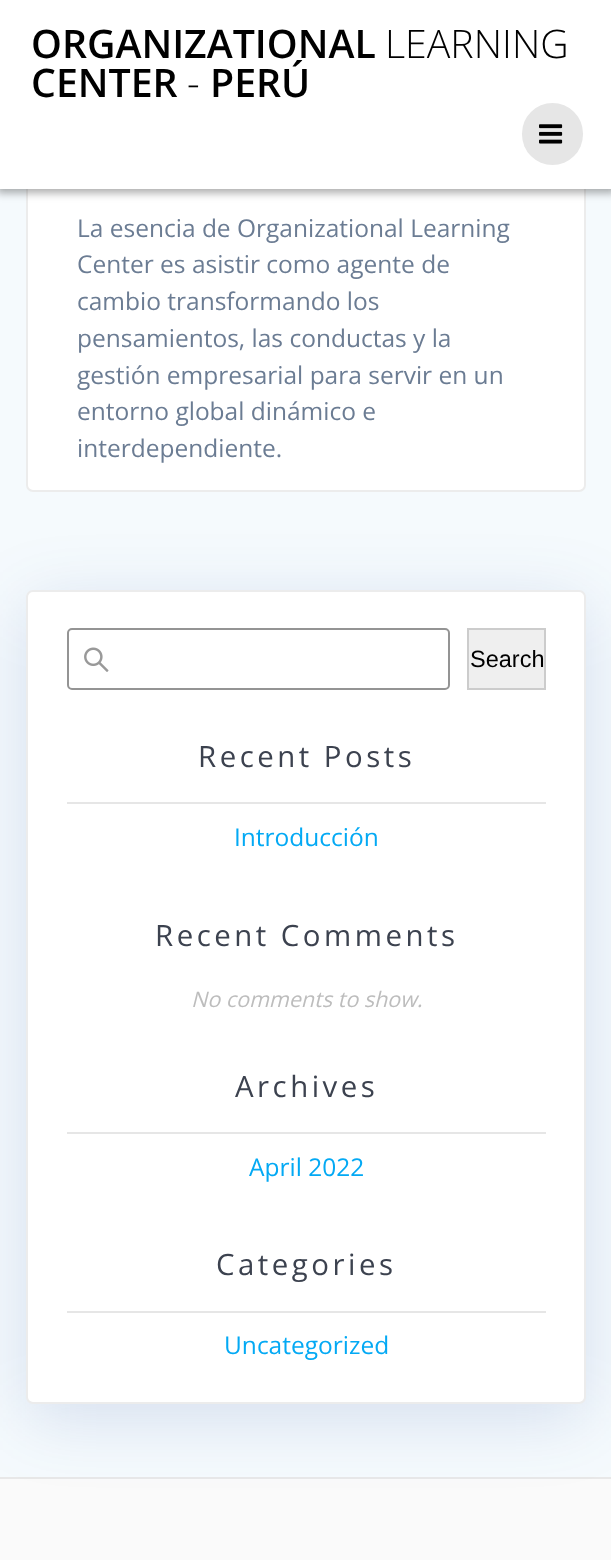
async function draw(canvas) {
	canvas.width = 611;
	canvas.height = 1560;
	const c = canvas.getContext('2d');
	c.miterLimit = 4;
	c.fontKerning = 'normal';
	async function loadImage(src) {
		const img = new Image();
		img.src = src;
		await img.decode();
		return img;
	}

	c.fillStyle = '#fafafa';
	c.fillRect(0, 0, 611, 1560);
	c.fillStyle = '#f5fafd';
	c.fillRect(0, 189, 611, 1288);
	c.fillStyle = '#fff';
	c.beginPath();
	c.roundRect(27, -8, 558, 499, 6);
	c.fill();
	c.strokeStyle = '#ececec';
	c.lineWidth = 2;
	c.stroke();
	c.fillStyle = '#00000054';
	c.filter = 'blur(4.5px)';
	c.beginPath();
	c.rect(-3, -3, 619, 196);
	c.fill();
	c.filter = 'none';
	c.fillStyle = '#fff';
	c.fillRect(0, 0, 611, 189);
	c.font = '600 39.25px Open Sans';
	c.fillStyle = '#000';
	c.fillText('ORGANIZATIONAL', 31, 58);
	c.font = '300 39.25px Open Sans';
	c.fillText('LEARNING', 385, 58);
	c.font = '600 39.25px Open Sans';
	c.fillText('CENTER', 31, 97);
	c.font = '300 39.25px Open Sans';
	c.fillText('-', 187, 97);
	c.font = '600 39.25px Open Sans';
	c.fillText('PERÚ', 210, 97);
	c.fillStyle = '#e6e6e6';
	c.beginPath();
	c.roundRect(522, 103, 61, 62, 30.5);
	c.fill();
	c.drawImage(await loadImage('img1.png'), 539, 124, 24, 20);
	c.font = '24.5px Open Sans';
	c.fillStyle = '#6b7c93';
	for (const [text, x, y] of [
		['La esencia de Organizational Learning', 77, 237],
		['Center es asistir como agente de', 77, 273],
		['cambio transformando los', 77, 310],
		['pensamientos, las conductas y la', 77, 347],
		['gestión empresarial para servir en un', 77, 384],
		['entorno global dinámico e', 77, 420],
		['interdependiente.', 77, 457],
	]) {
		c.fillText(text, x, y);
	}
	c.fillStyle = '#e8e8e8';
	c.fillRect(0, 1477, 611, 2);
	c.fillStyle = '#23459826';
	c.filter = 'blur(34.5px)';
	c.beginPath();
	c.roundRect(26, 604, 560, 814, 7);
	c.fill();
	c.filter = 'none';
	c.fillStyle = '#fff';
	c.beginPath();
	c.roundRect(27, 591, 558, 812, 6);
	c.fill();
	c.stroke();
	c.drawImage(await loadImage('img2.png'), 84, 647, 25, 25);
	c.beginPath();
	c.roundRect(68, 629, 381, 60, 4);
	c.strokeStyle = '#949494';
	c.stroke();
	c.fillStyle = '#efefef';
	c.beginPath();
	c.rect(468, 629, 77, 60);
	c.fill();
	c.strokeStyle = '#ccc';
	c.stroke();
	c.font = '23.5px Liberation Sans';
	c.fillStyle = '#000';
	c.fillText('Search', 470, 667);
	c.letterSpacing = '3.5px';
	c.font = '29.4px Open Sans';
	c.fillStyle = '#3c424f';
	c.fillText('Recent Posts', 198, 767);
	c.fillStyle = '#e6e6e6';
	c.fillRect(67, 802, 479, 2);
	c.letterSpacing = '0px';
	c.font = '24.5px Open Sans';
	c.fillStyle = '#03a9f4';
	c.fillText('Introducción', 234, 846);
	c.letterSpacing = '3.5px';
	c.font = '29.4px Open Sans';
	c.fillStyle = '#3c424f';
	c.fillText('Recent Comments', 155, 946);
	c.letterSpacing = '0px';
	c.font = 'italic 21.5px Open Sans';
	c.fillStyle = '#bdbdbd';
	c.fillText('No comments to show.', 191, 1007);
	c.letterSpacing = '3.5px';
	c.font = '29.4px Open Sans';
	c.fillStyle = '#3c424f';
	c.fillText('Archives', 235, 1097);
	c.fillStyle = '#e6e6e6';
	c.fillRect(67, 1132, 479, 2);
	c.letterSpacing = '0px';
	c.font = '24.5px Open Sans';
	c.fillStyle = '#03a9f4';
	c.fillText('April 2022', 249, 1176);
	c.letterSpacing = '3.5px';
	c.font = '29.4px Open Sans';
	c.fillStyle = '#3c424f';
	c.fillText('Categories', 216, 1275);
	c.fillStyle = '#e6e6e6';
	c.fillRect(67, 1311, 479, 2);
	c.letterSpacing = '0px';
	c.font = '24.5px Open Sans';
	c.fillStyle = '#03a9f4';
	c.fillText('Uncategorized', 224, 1354);
}

draw(document.querySelector('canvas'));
